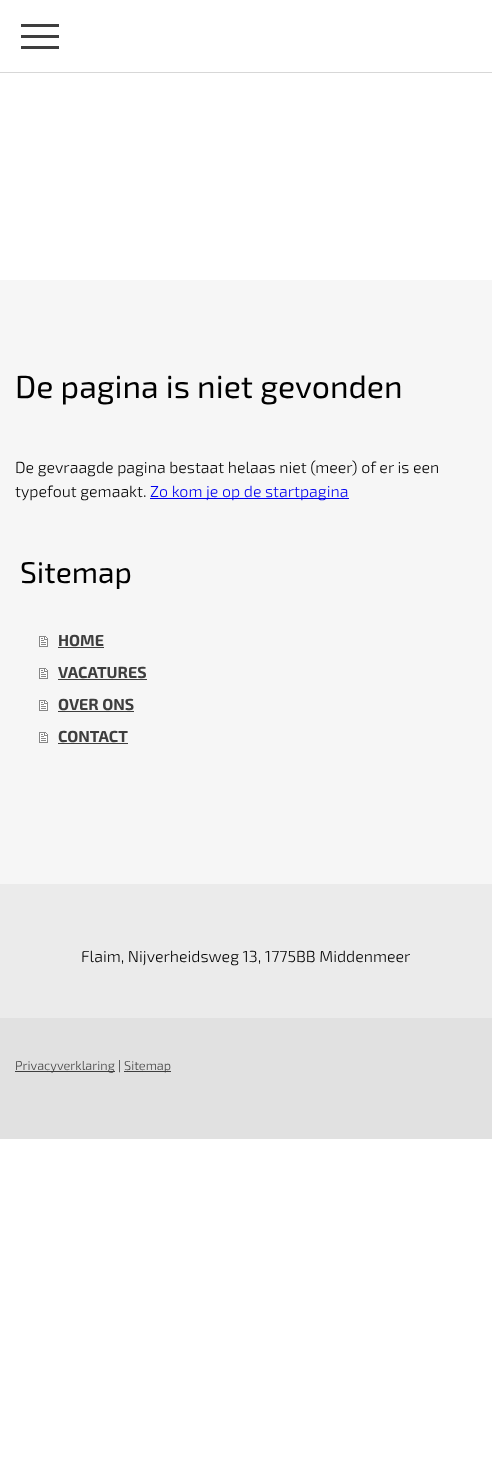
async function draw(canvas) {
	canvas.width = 492;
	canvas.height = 1475;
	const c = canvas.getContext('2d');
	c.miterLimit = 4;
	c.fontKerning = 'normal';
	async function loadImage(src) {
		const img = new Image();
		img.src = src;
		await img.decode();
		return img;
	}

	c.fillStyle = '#fff';
	c.fillRect(0, 0, 492, 1475);
	for (const [x, y, w, h, color] of [
		[0, 72, 492, 1, '#d7d7d7'],
		[21, 35, 38, 3, '#3e3e3e'],
		[21, 24, 38, 3, '#3e3e3e'],
		[21, 46, 38, 3, '#3e3e3e'],
		[0, 280, 492, 604, '#f6f6f6'],
	]) {
		c.fillStyle = color;
		c.fillRect(x, y, w, h);
	}
	c.font = '32px "Exo 2"';
	c.fillStyle = '#000';
	c.fillText('De pagina is niet gevonden', 15, 398);
	c.font = '300 16px "Exo 2"';
	c.fillText('De gevraagde pagina bestaat helaas niet (meer) of er is een', 15, 473);
	c.fillText('typefout gemaakt.', 15, 497);
	c.fillStyle = '#00e';
	c.fillRect(150, 498, 199, 1);
	c.fillText('Zo kom je op de startpagina', 150, 497);
	c.font = '30px "Exo 2"';
	c.fillStyle = '#000';
	c.fillText('Sitemap', 20, 583);
	c.drawImage(await loadImage('img1.png'), 39, 636, 9, 11);
	c.font = 'bold 16px "Exo 2"';
	c.fillStyle = '#3e3e3e';
	c.fillText('HOME', 58, 646);
	c.fillRect(58, 647, 46, 1);
	c.drawImage(await loadImage('img1.png'), 39, 668, 9, 11);
	c.fillText('VACATURES', 58, 678);
	c.fillRect(58, 679, 89, 1);
	c.drawImage(await loadImage('img1.png'), 39, 700, 9, 11);
	c.fillText('OVER ONS', 58, 710);
	c.fillRect(58, 711, 76, 1);
	c.drawImage(await loadImage('img1.png'), 39, 732, 9, 11);
	c.fillText('CONTACT', 58, 742);
	c.fillRect(58, 743, 70, 1);
	c.fillStyle = '#ebebeb';
	c.fillRect(0, 884, 492, 134);
	c.font = '300 16px "Exo 2"';
	c.fillStyle = '#000';
	c.fillText('Flaim, Nijverheidsweg 13, 1775BB Middenmeer', 81, 962);
	c.fillStyle = '#e1e1e1';
	c.fillRect(0, 1018, 492, 121);
	c.fillStyle = '#3e3e3e';
	c.fillRect(15, 1071, 100, 1);
	c.font = '300 12.75px "Exo 2"';
	c.fillText('Privacyverklaring', 15, 1070);
	c.fillStyle = '#000';
	c.fillText('|', 118, 1070);
	c.fillStyle = '#3e3e3e';
	c.fillRect(124, 1071, 47, 1);
	c.fillText('Sitemap', 124, 1070);
}

draw(document.querySelector('canvas'));
